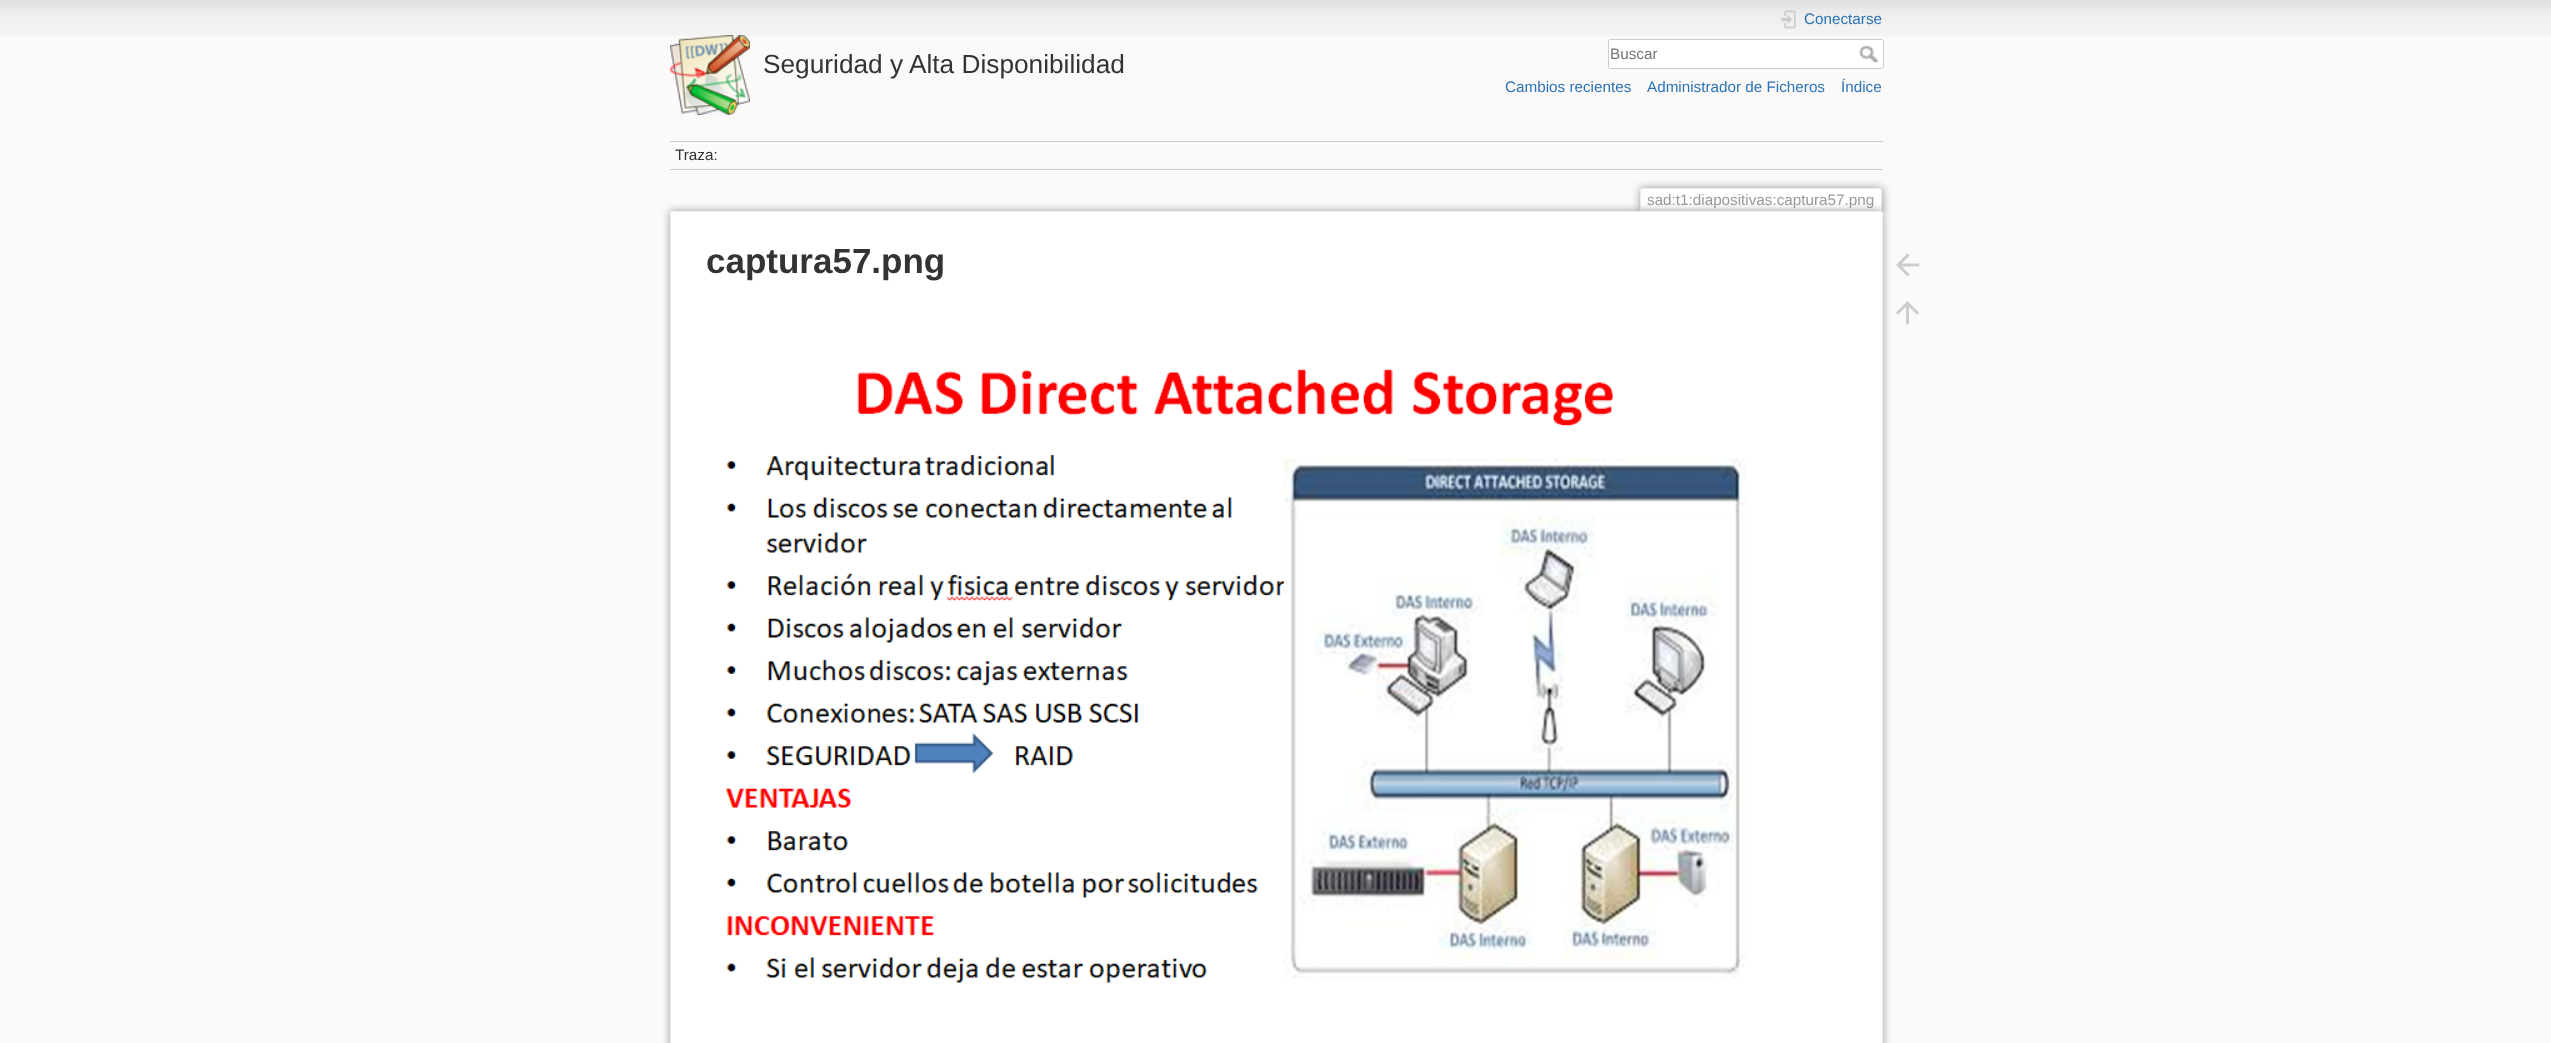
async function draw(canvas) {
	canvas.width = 2551;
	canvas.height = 1043;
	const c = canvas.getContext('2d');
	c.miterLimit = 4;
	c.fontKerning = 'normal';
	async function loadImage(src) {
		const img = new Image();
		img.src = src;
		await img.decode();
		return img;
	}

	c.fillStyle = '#fbfaf9';
	c.fillRect(0, 0, 2551, 1043);
	c.drawImage(await loadImage('img1.png'), 0, 0, 2551, 36);
	c.drawImage(await loadImage('img2.png'), 670, 35, 80, 80);
	c.font = '26.25px Liberation Sans';
	c.fillStyle = '#333';
	c.fillText('Seguridad y Alta Disponibilidad', 763, 73);
	c.drawImage(await loadImage('img3.png'), 1781, 10, 15, 19);
	c.font = '15.25px Liberation Sans';
	c.fillStyle = '#2b73b7';
	c.fillText('Conectarse', 1804, 24);
	c.fillStyle = '#fff';
	c.beginPath();
	c.roundRect(1608.5, 39.5, 275, 29, 2);
	c.fill();
	c.strokeStyle = '#ccc';
	c.stroke();
	c.fillStyle = '#757575';
	c.fillText('Buscar', 1610, 59);
	c.drawImage(await loadImage('img4.png'), 1859, 45, 19, 18);
	c.fillStyle = '#2b73b7';
	for (const [text, x, y] of [
		['Cambios recientes', 1505, 92],
		['Administrador de Ficheros', 1647, 92],
		['Índice', 1841, 92],
	]) {
		c.fillText(text, x, y);
	}
	for (const [x, y, w, h, color] of [
		[670, 141, 1213, 1, '#ccc'],
		[670, 170, 1213, 1, '#fff'],
		[670, 143, 1213, 1, '#fff'],
		[670, 169, 1213, 1, '#ccc'],
	]) {
		c.fillStyle = color;
		c.fillRect(x, y, w, h);
	}
	c.fillStyle = '#333';
	c.fillText('Traza:', 675, 160);
	c.save();
	c.beginPath();
	c.rect(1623, 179, 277, 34);
	c.clip();
	c.fillStyle = '#999';
	c.filter = 'blur(4px)';
	c.beginPath();
	c.roundRect(1640, 188, 243, 25, 2.5);
	c.fill();
	c.filter = 'none';
	c.restore();
	c.fillStyle = '#fff';
	c.beginPath();
	c.roundRect(1641, 189, 240, 24, [1, 1, 0, 0]);
	c.fill();
	for (const [x, y, w, h, color] of [
		[1641, 188, 240, 1, '#eee'],
		[1881, 189, 1, 24, '#eee'],
		[1640, 189, 1, 24, '#eee'],
	]) {
		c.fillStyle = color;
		c.fillRect(x, y, w, h);
	}
	c.fillStyle = '#999';
	c.fillText('sad:t1:diapositivas:captura57.png', 1647, 205);
	c.filter = 'blur(4.5px)';
	c.beginPath();
	c.roundRect(670, 211, 1213, 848, 2.5);
	c.fill();
	c.filter = 'none';
	c.fillStyle = '#fff';
	c.beginPath();
	c.roundRect(670.5, 211.5, 1212, 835, 2);
	c.fill();
	c.strokeStyle = '#eee';
	c.stroke();
	c.font = 'bold 35px Liberation Sans';
	c.fillStyle = '#333';
	c.fillText('captura57.png', 706, 273);
	c.drawImage(await loadImage('img5.png'), 726, 368, 1020, 615);
	c.drawImage(await loadImage('img6.png'), 1896, 253, 24, 24);
	c.drawImage(await loadImage('img7.png'), 1896, 301, 23, 24);
}

draw(document.querySelector('canvas'));
